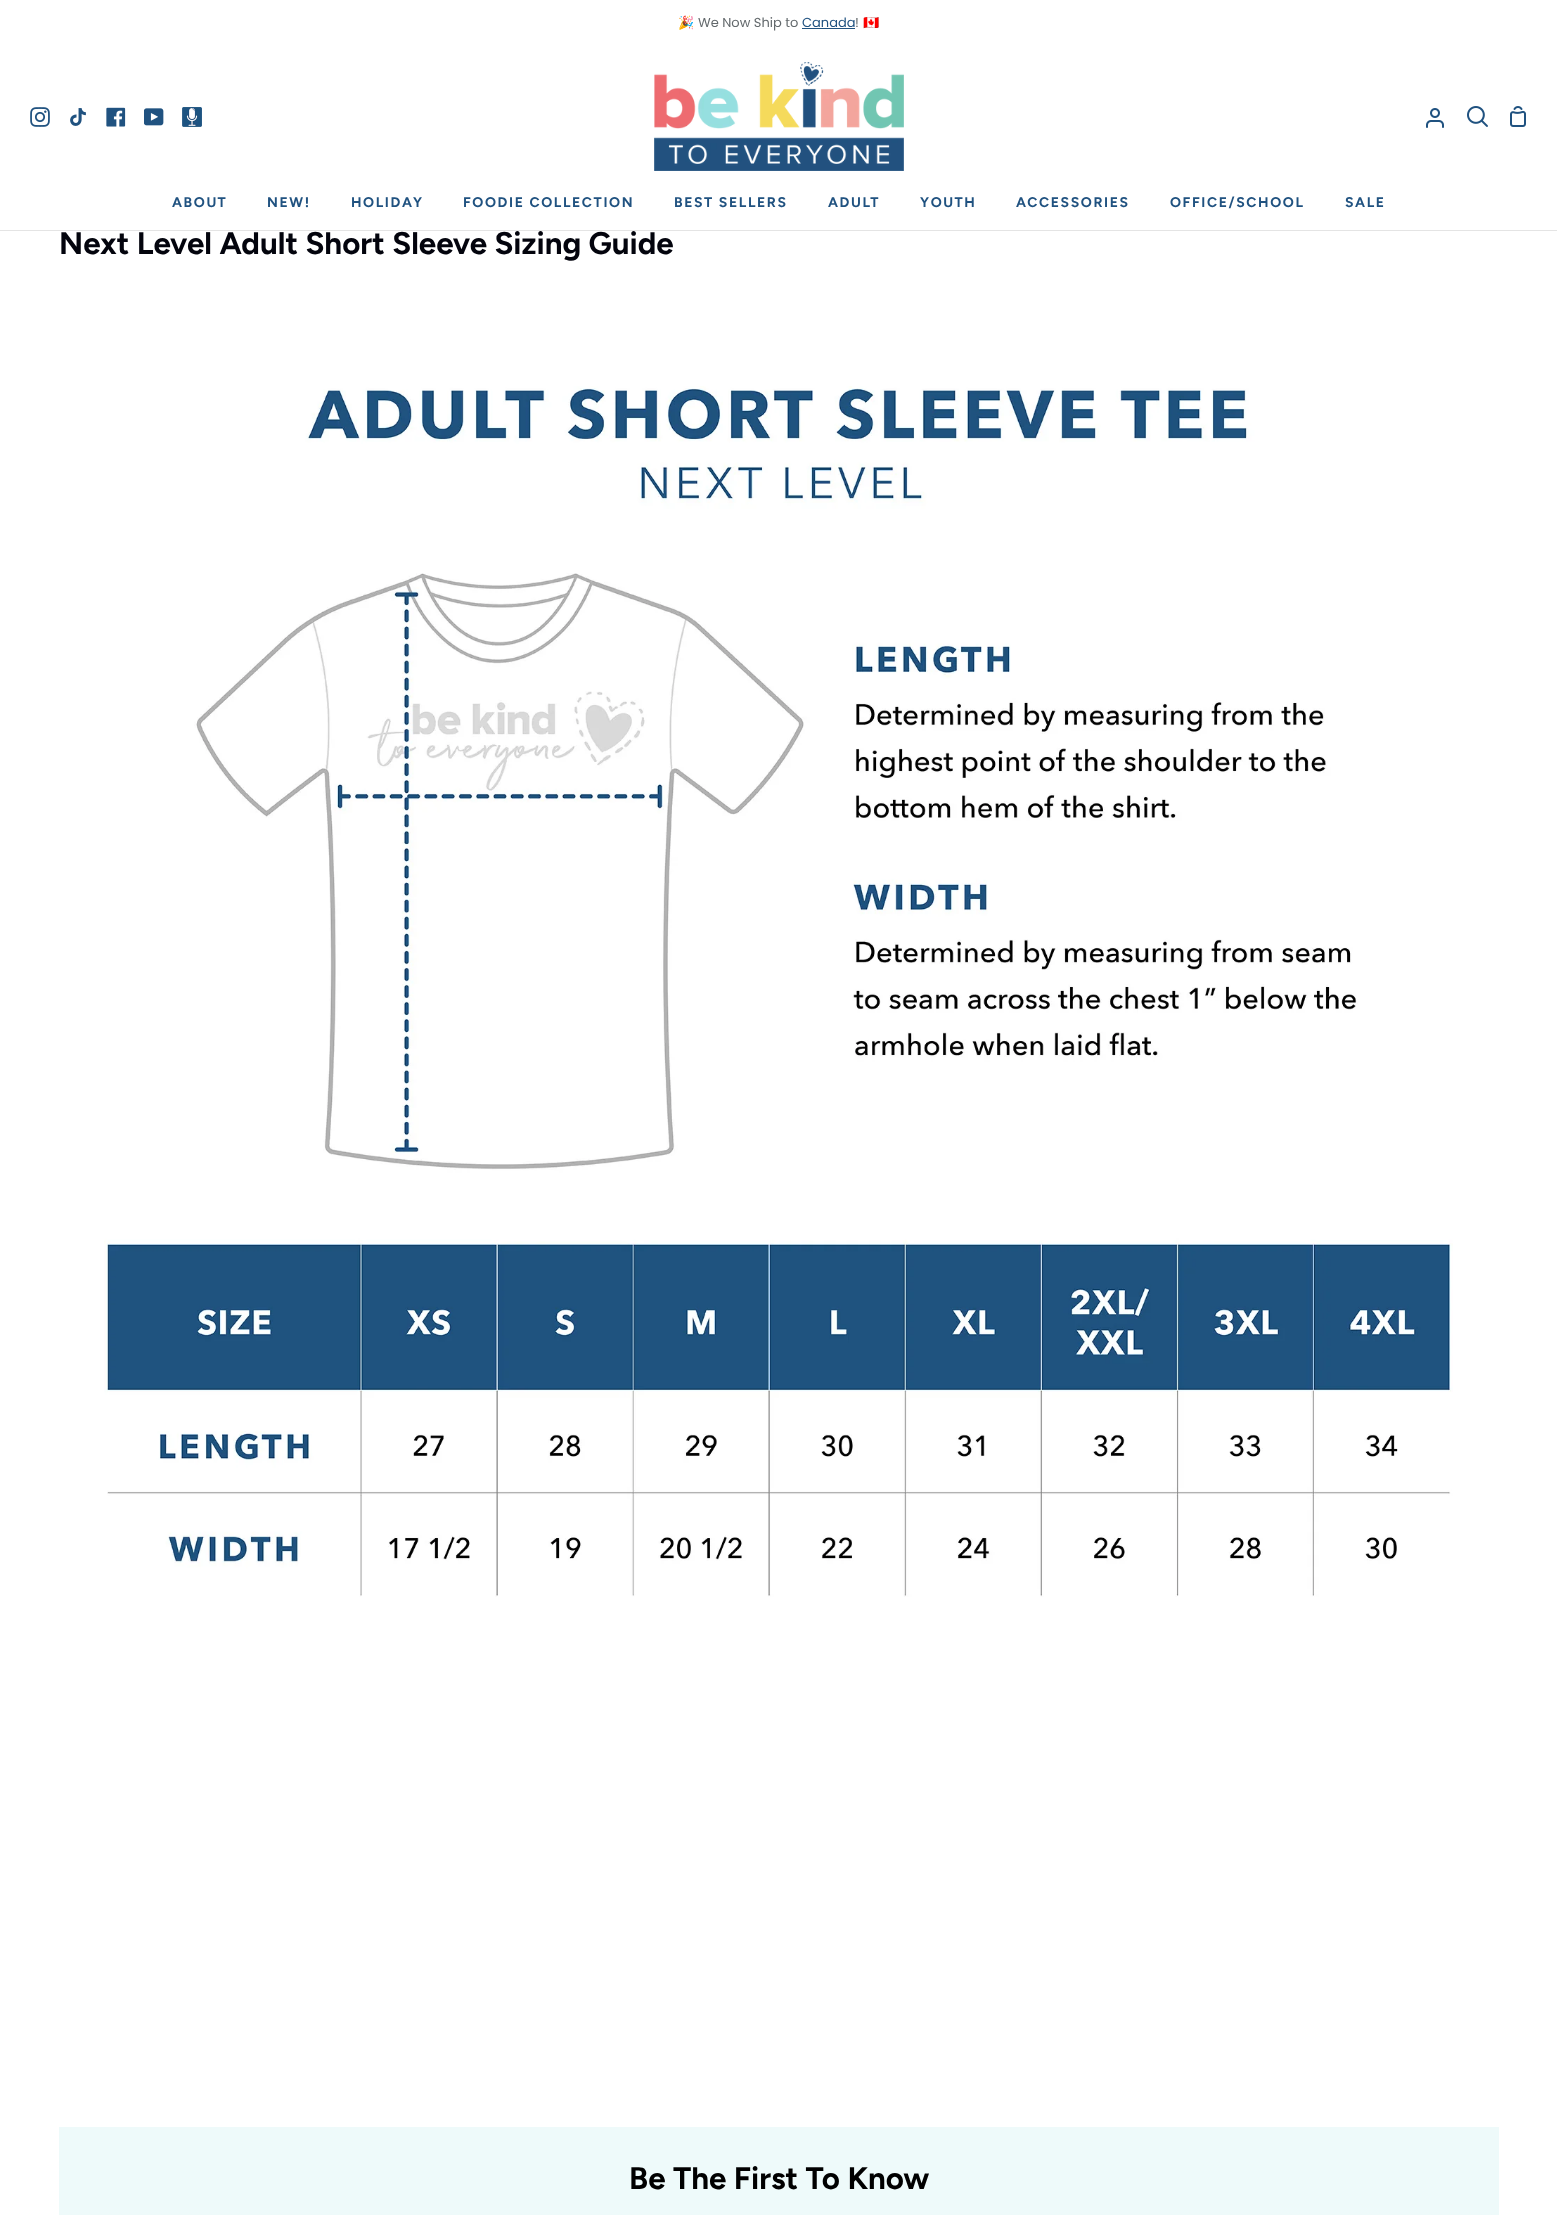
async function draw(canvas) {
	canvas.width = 1557;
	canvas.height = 2215;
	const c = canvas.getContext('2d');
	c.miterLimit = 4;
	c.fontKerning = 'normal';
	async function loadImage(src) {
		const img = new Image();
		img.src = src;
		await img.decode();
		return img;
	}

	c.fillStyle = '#fff';
	c.fillRect(0, 0, 1557, 2215);
	c.fillStyle = '#e4e4e4';
	c.fillRect(0, 230, 1557, 1);
	c.font = '13px Noto Color Emoji';
	c.fillStyle = '#63696c';
	c.fillText('🎉', 678, 27);
	c.font = '13px Poppins';
	c.fillText('We Now Ship to', 698, 27);
	c.fillStyle = '#205280';
	c.fillText('Canada', 802, 27);
	c.fillRect(802, 28, 53, 1);
	c.fillStyle = '#63696c';
	c.fillText('!', 855, 27);
	c.font = '13px Noto Color Emoji';
	c.fillText('🇨🇦', 863, 27);
	c.drawImage(await loadImage('img1.png'), 30, 107, 20, 20);
	c.drawImage(await loadImage('img2.png'), 70, 108, 16, 18);
	c.drawImage(await loadImage('img3.png'), 106, 107, 20, 20);
	c.drawImage(await loadImage('img4.png'), 144, 108, 20, 18);
	c.drawImage(await loadImage('img5.png'), 182, 107, 20, 20);
	c.drawImage(await loadImage('img6.png'), 654, 62, 250, 109);
	c.drawImage(await loadImage('img7.png'), 1426, 108, 18, 20);
	c.drawImage(await loadImage('img8.png'), 1467, 106, 21, 21);
	c.drawImage(await loadImage('img9.png'), 1510, 106, 16, 21);
	c.letterSpacing = '1.6px';
	c.font = 'bold 14px Figtree';
	c.fillStyle = '#205280';
	for (const [text, x, y] of [
		['ABOUT', 172, 207],
		['NEW!', 267, 207],
		['HOLIDAY', 351, 207],
		['FOODIE COLLECTION', 463, 207],
		['BEST SELLERS', 674, 207],
		['ADULT', 828, 207],
		['YOUTH', 920, 207],
		['ACCESSORIES', 1016, 207],
		['OFFICE/SCHOOL', 1170, 207],
		['SALE', 1345, 207],
	]) {
		c.fillText(text, x, y);
	}
	c.letterSpacing = '0px';
	c.font = 'bold 31.25px Figtree';
	c.fillStyle = '#03040d';
	c.fillText('Next Level Adult Short Sleeve Sizing Guide', 59, 254);
	c.drawImage(await loadImage('img10.png'), 104, 386, 1349, 1211);
	c.fillStyle = '#eefafa';
	c.fillRect(59, 2127, 1440, 88);
	c.fillStyle = '#000';
	c.fillText('Be The First To Know', 629, 2189);
}

draw(document.querySelector('canvas'));
